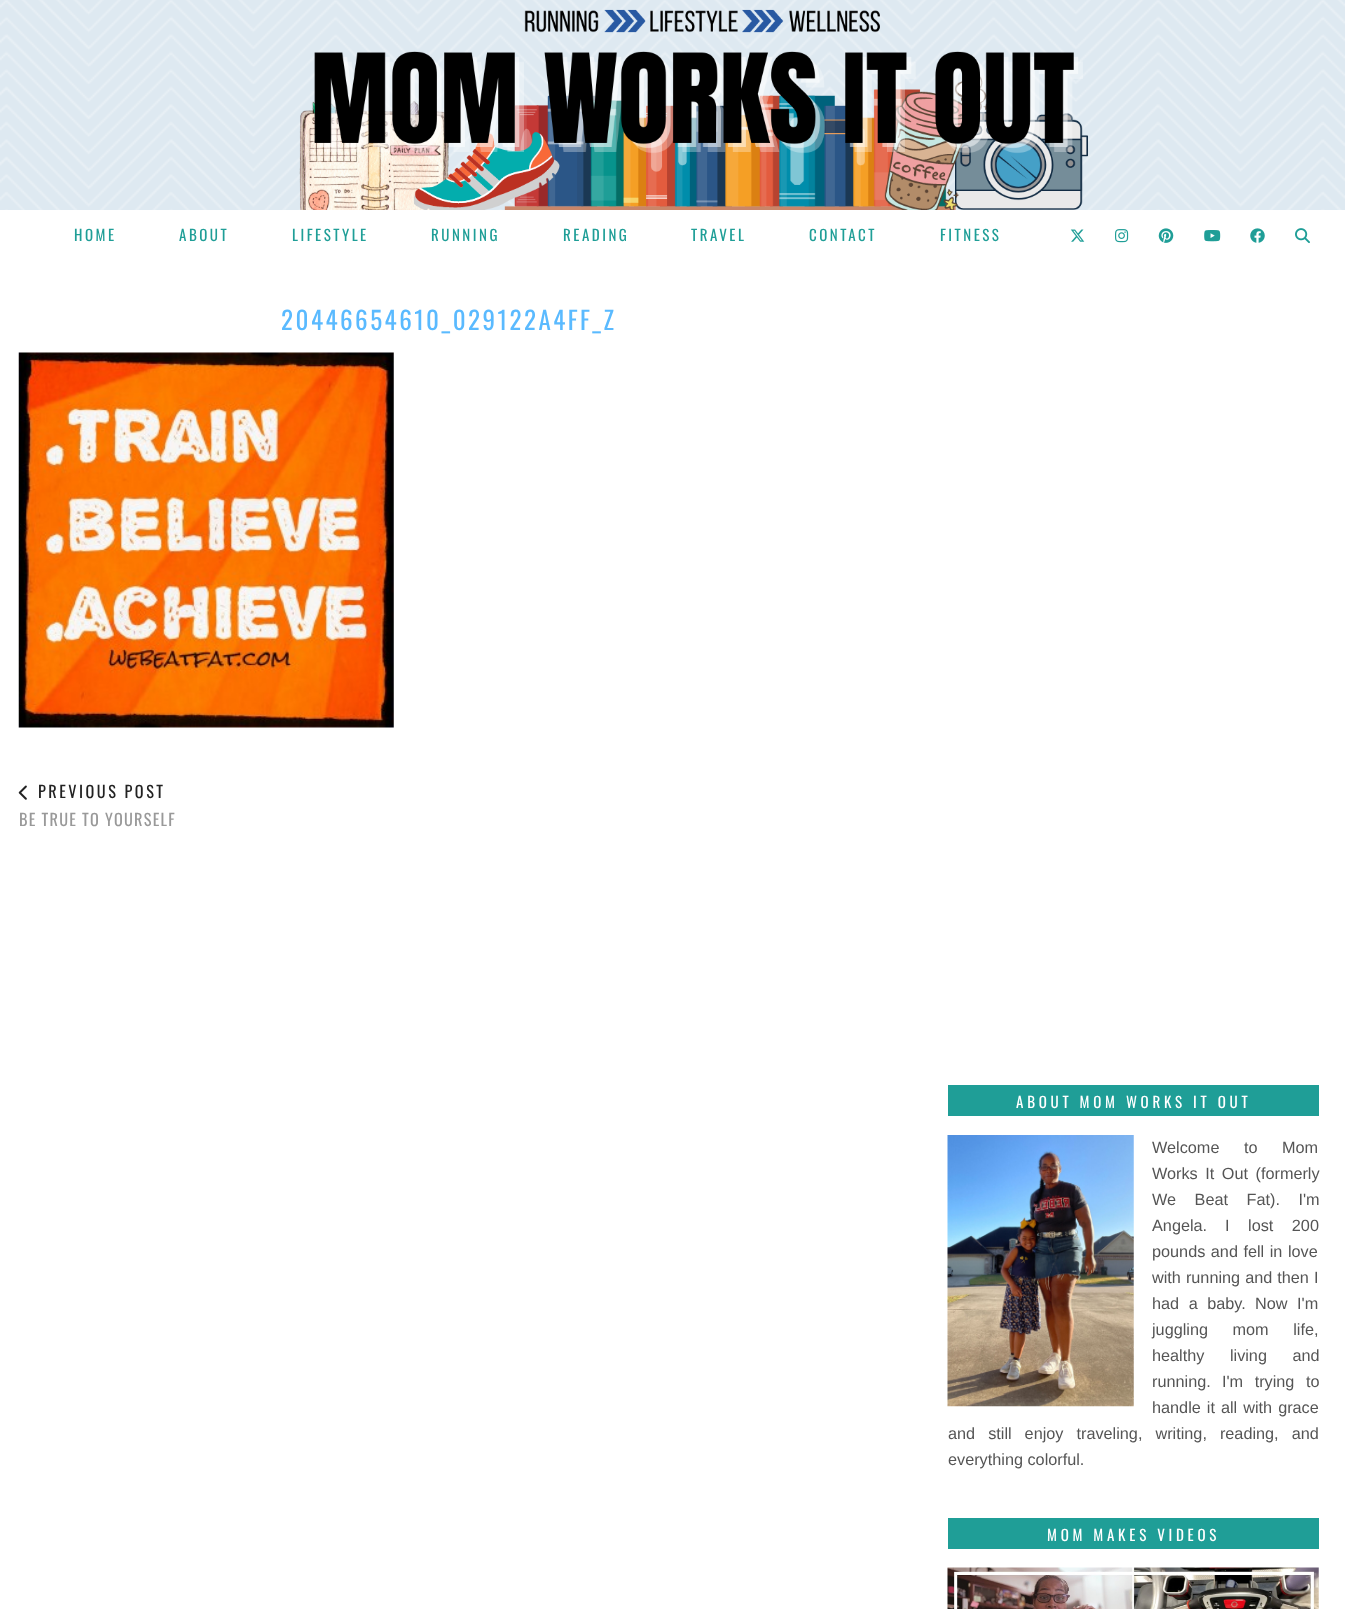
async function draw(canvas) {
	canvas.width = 1345;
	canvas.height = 1609;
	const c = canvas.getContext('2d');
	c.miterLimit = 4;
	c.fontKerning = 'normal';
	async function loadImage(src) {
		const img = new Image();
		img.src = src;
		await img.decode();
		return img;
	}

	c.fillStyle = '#fff';
	c.fillRect(0, 0, 1345, 1609);
	c.drawImage(await loadImage('img1.png'), 0, 0, 1345, 210);
	c.letterSpacing = '2.5px';
	c.font = '15px Oswald';
	c.fillStyle = '#1f9e97';
	for (const [text, x, y] of [
		['HOME', 74, 241],
		['ABOUT', 179, 241],
		['LIFESTYLE', 292, 241],
		['RUNNING', 431, 241],
		['READING', 563, 241],
		['TRAVEL', 691, 241],
		['CONTACT', 809, 241],
		['FITNESS', 940, 241],
	]) {
		c.fillText(text, x, y);
	}
	c.drawImage(await loadImage('img2.png'), 1070, 229, 15, 13);
	c.drawImage(await loadImage('img3.png'), 1115, 229, 14, 14);
	c.drawImage(await loadImage('img4.png'), 1158, 228, 16, 15);
	c.drawImage(await loadImage('img5.png'), 1204, 230, 17, 12);
	c.drawImage(await loadImage('img6.png'), 1250, 228, 15, 15);
	c.drawImage(await loadImage('img7.png'), 1295, 228, 15, 16);
	c.font = '25px Oswald';
	c.fillStyle = '#5abaff';
	c.fillText('20446654610_029122A4FF_Z', 281, 330);
	c.drawImage(await loadImage('img8.png'), 18, 352, 376, 376);
	c.drawImage(await loadImage('img9.png'), 18, 785, 9, 15);
	c.font = '16.25px Oswald';
	c.fillStyle = '#222';
	c.fillText('PREVIOUS POST', 38, 798);
	c.letterSpacing = '1.25px';
	c.fillStyle = '#999';
	c.fillText('BE TRUE TO YOURSELF', 19, 826);
	c.fillStyle = '#1f9e97';
	c.fillRect(948, 1085, 371, 31);
	c.letterSpacing = '3.75px';
	c.font = '15px Oswald';
	c.fillStyle = '#fff';
	c.fillText('ABOUT MOM WORKS IT OUT', 1016, 1108);
	c.drawImage(await loadImage('img10.png'), 947, 1135, 187, 272);
	c.letterSpacing = '0px';
	c.wordSpacing = '20px';
	c.font = '16.25px Liberation Sans';
	c.fillStyle = '#555';
	c.fillText('Welcome to Mom', 1152, 1153);
	c.wordSpacing = '3px';
	c.fillText('Works It Out (formerly', 1152, 1179);
	c.wordSpacing = '14px';
	c.fillText('We Beat Fat). I\'m', 1152, 1205);
	c.wordSpacing = '0px';
	c.fillText('Angela.', 1152, 1231);
	c.wordSpacing = '14px';
	c.fillText('I lost 200', 1225, 1231);
	c.wordSpacing = '1px';
	c.fillText('pounds and fell in love', 1152, 1257);
	c.wordSpacing = '0.5px';
	c.fillText('with running and then I', 1152, 1283);
	c.wordSpacing = '5px';
	c.fillText('had a baby.', 1152, 1309);
	c.fillText('Now I\'m', 1255, 1309);
	c.wordSpacing = '20px';
	c.fillText('juggling mom life,', 1152, 1335);
	c.wordSpacing = '21px';
	c.fillText('healthy living and', 1152, 1361);
	c.wordSpacing = '0px';
	c.fillText('running.', 1152, 1387);
	c.wordSpacing = '7px';
	c.fillText('I\'m trying to', 1222, 1387);
	c.wordSpacing = '1.5px';
	c.fillText('handle it all with grace', 1152, 1413);
	c.wordSpacing = '8.5px';
	c.fillText('and still enjoy traveling, writing, reading, and', 948, 1439);
	c.wordSpacing = '0px';
	c.fillText('everything colorful.', 948, 1465);
	c.fillStyle = '#1f9e97';
	c.fillRect(948, 1518, 371, 31);
	c.letterSpacing = '3.75px';
	c.font = '15px Oswald';
	c.fillStyle = '#fff';
	c.fillText('MOM MAKES VIDEOS', 1047, 1541);
	c.drawImage(await loadImage('img11.png'), 947, 1567, 372, 42);
}

draw(document.querySelector('canvas'));
